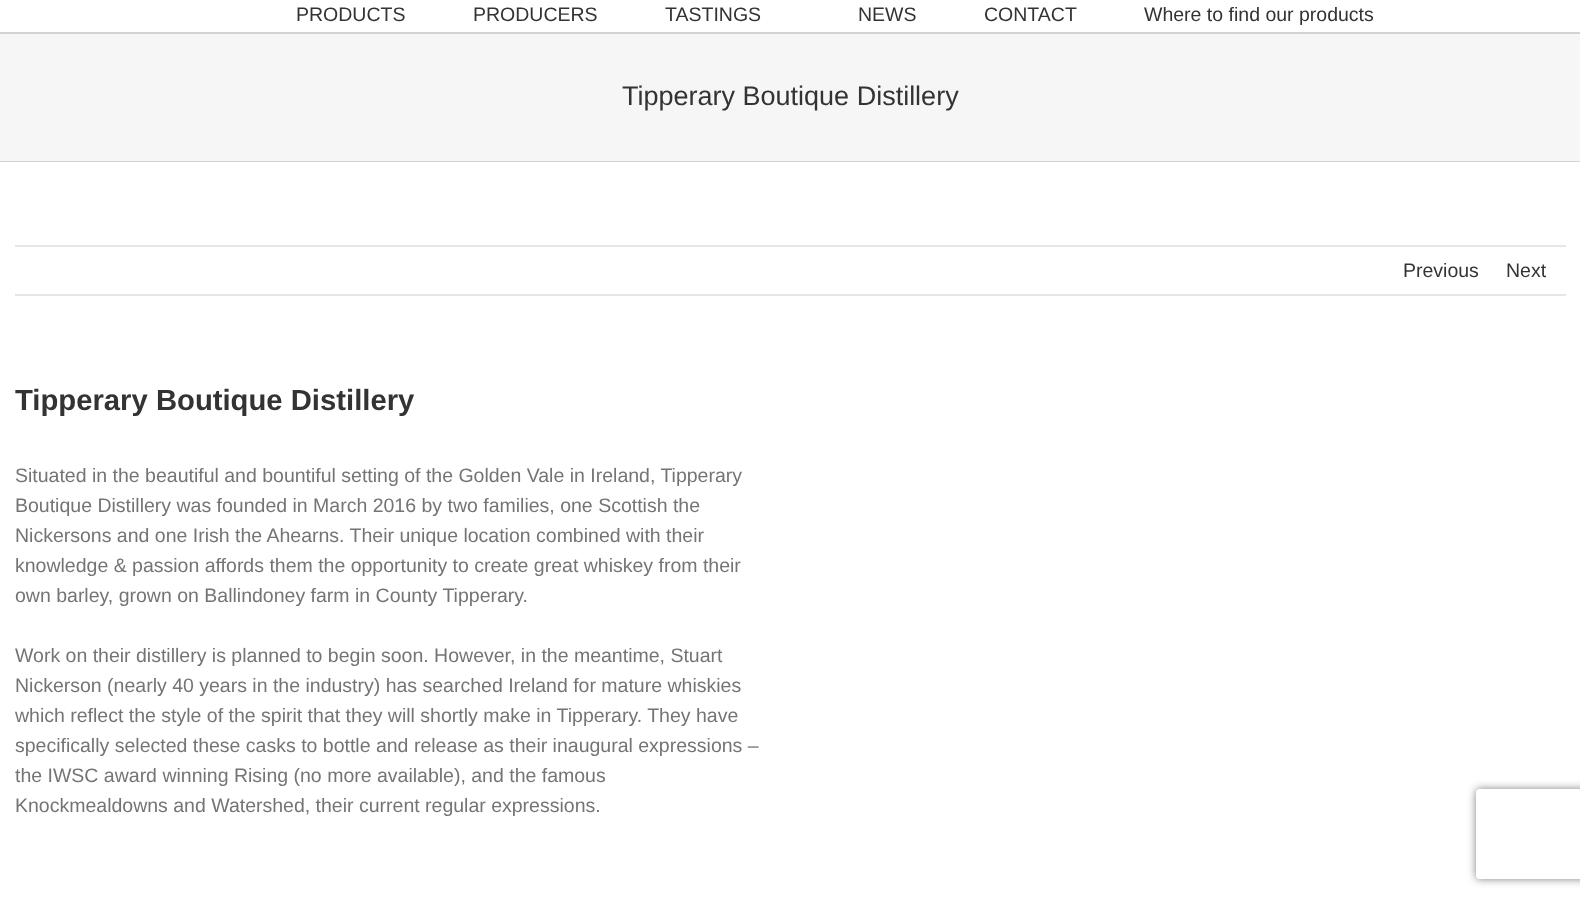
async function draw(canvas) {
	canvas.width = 1580;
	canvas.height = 899;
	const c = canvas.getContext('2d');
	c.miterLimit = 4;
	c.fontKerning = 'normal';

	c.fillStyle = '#fff';
	c.fillRect(0, 0, 1580, 899);
	c.font = '19.5px Liberation Sans';
	c.fillStyle = '#333';
	for (const [text, x, y] of [
		['PRODUCTS', 296, 21],
		['PRODUCERS', 473, 21],
		['TASTINGS', 665, 21],
		['NEWS', 858, 21],
		['CONTACT', 984, 21],
		['Where to find our products', 1144, 21],
	]) {
		c.fillText(text, x, y);
	}
	for (const [x, y, w, h, color] of [
		[0, 34, 1580, 127, '#f6f6f6'],
		[0, 32, 1580, 2, '#d2d3d4'],
		[0, 161, 1580, 1, '#d2d3d4'],
	]) {
		c.fillStyle = color;
		c.fillRect(x, y, w, h);
	}
	c.font = '27px Liberation Sans';
	c.fillStyle = '#333';
	c.fillText('Tipperary Boutique Distillery', 622, 105);
	c.fillStyle = '#e7e6e6';
	c.fillRect(15, 245, 1551, 2);
	c.fillRect(15, 294, 1551, 2);
	c.font = '19.5px Liberation Sans';
	c.fillStyle = '#333';
	c.fillText('Previous', 1403, 277);
	c.fillText('Next', 1506, 277);
	c.font = 'bold 29.25px Liberation Sans';
	c.fillText('Tipperary Boutique Distillery', 15, 410);
	c.font = '19.5px Liberation Sans';
	c.fillStyle = '#747474';
	for (const [text, x, y] of [
		['Situated in the beautiful and bountiful setting of the Golden Vale in Ireland, Tipperary', 15, 482],
		['Boutique Distillery was founded in March 2016 by two families, one Scottish the', 15, 512],
		['Nickersons and one Irish the Ahearns. Their unique location combined with their', 15, 542],
		['knowledge & passion affords them the opportunity to create great whiskey from their', 15, 572],
		['own barley, grown on Ballindoney farm in County Tipperary.', 15, 602],
		['Work on their distillery is planned to begin soon. However, in the meantime, Stuart', 15, 662],
		['Nickerson (nearly 40 years in the industry) has searched Ireland for mature whiskies', 15, 692],
		['which reflect the style of the spirit that they will shortly make in Tipperary. They have', 15, 722],
		['specifically selected these casks to bottle and release as their inaugural expressions –', 15, 752],
		['the IWSC award winning Rising (no more available), and the famous', 15, 782],
		['Knockmealdowns and Watershed, their current regular expressions.', 15, 812],
	]) {
		c.fillText(text, x, y);
	}
	c.save();
	c.beginPath();
	c.moveTo(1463, 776);
	c.lineTo(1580, 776);
	c.lineTo(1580, 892);
	c.lineTo(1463, 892);
	c.closePath();
	c.moveTo(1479, 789);
	c.lineTo(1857, 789);
	c.bezierCurveTo(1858.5, 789, 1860, 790.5, 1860, 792);
	c.lineTo(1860, 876);
	c.bezierCurveTo(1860, 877.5, 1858.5, 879, 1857, 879);
	c.lineTo(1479, 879);
	c.bezierCurveTo(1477.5, 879, 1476, 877.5, 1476, 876);
	c.lineTo(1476, 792);
	c.bezierCurveTo(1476, 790.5, 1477.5, 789, 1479, 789);
	c.closePath();
	c.clip('evenodd');
	c.fillStyle = '#808080';
	c.filter = 'blur(4px)';
	c.beginPath();
	c.roundRect(1476, 789, 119, 90, 3);
	c.fill();
	c.filter = 'none';
	c.restore();
}

draw(document.querySelector('canvas'));
